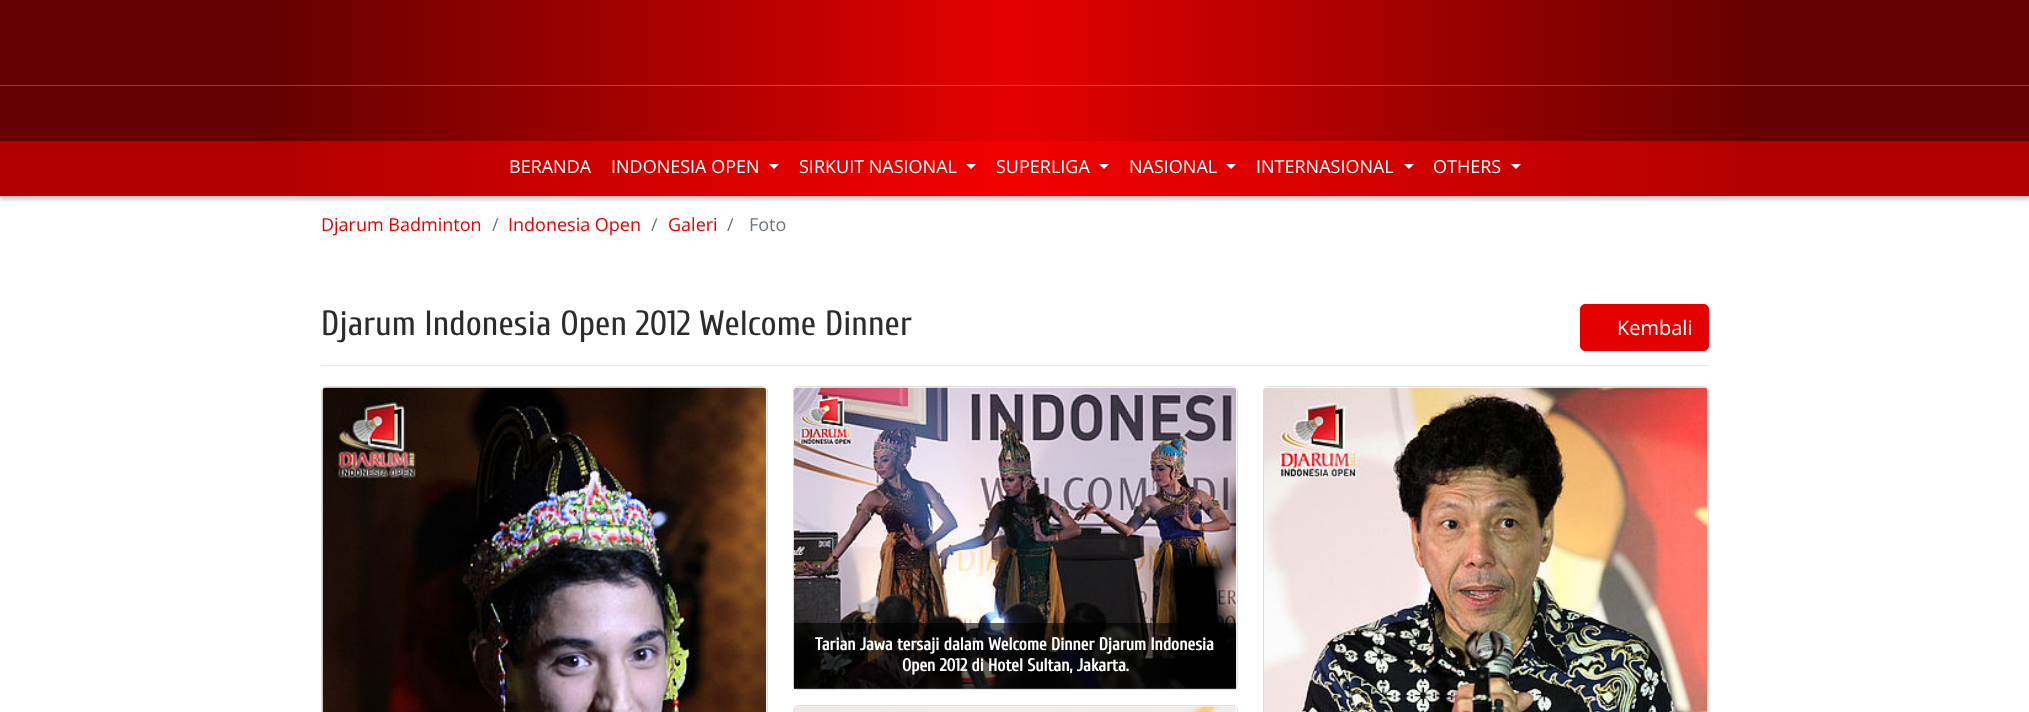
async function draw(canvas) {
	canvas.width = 2029;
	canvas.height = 712;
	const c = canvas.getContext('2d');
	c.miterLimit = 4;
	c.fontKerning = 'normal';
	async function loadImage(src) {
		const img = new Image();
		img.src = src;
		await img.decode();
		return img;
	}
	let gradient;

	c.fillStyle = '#fff';
	c.fillRect(0, 0, 2029, 712);
	for (const [x, y, w, h, color] of [
		[0, 0, 2029, 141, '#650000'],
		[0, 141, 2029, 55, '#b20000'],
		[0, 85, 2029, 1, '#8c4040'],
	]) {
		c.fillStyle = color;
		c.fillRect(x, y, w, h);
	}
	gradient = c.createLinearGradient(265, 98, 1765, 98);
	gradient.addColorStop(0, '#650000');
	gradient.addColorStop(0.5, '#e50000');
	gradient.addColorStop(1, '#650000');
	c.fillStyle = gradient;
	c.fillRect(265, 0, 1500, 141);
	gradient = c.createLinearGradient(265, 98, 1765, 98);
	gradient.addColorStop(0, '#b20000');
	gradient.addColorStop(0.5, '#f20000');
	gradient.addColorStop(1, '#b20000');
	c.fillStyle = gradient;
	c.fillRect(294, 141, 1442, 55);
	gradient = c.createLinearGradient(265, 98, 1765, 98);
	gradient.addColorStop(0, '#8c4040');
	gradient.addColorStop(0.5, '#ec4040');
	gradient.addColorStop(1, '#8c4040');
	c.fillStyle = gradient;
	c.fillRect(265, 85, 1500, 1);
	c.save();
	c.beginPath();
	c.rect(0, 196, 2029, 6);
	c.clip();
	c.fillStyle = '#00000040';
	c.filter = 'blur(2.5px)';
	c.beginPath();
	c.rect(0, 3, 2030, 196);
	c.fill();
	c.filter = 'none';
	c.restore();
	c.font = '18px Open Sans';
	c.fillStyle = '#fff';
	c.fillText('BERANDA', 509, 173);
	c.fillText('INDONESIA OPEN', 611, 173);
	c.beginPath();
	c.moveTo(769, 164);
	c.lineTo(779, 164);
	c.lineTo(774, 169);
	c.closePath();
	c.fill();
	c.fillText('SIRKUIT NASIONAL', 799, 173);
	c.beginPath();
	c.moveTo(966, 164);
	c.lineTo(976, 164);
	c.lineTo(971, 169);
	c.closePath();
	c.fill();
	c.fillText('SUPERLIGA', 996, 173);
	c.beginPath();
	c.moveTo(1099, 164);
	c.lineTo(1109, 164);
	c.lineTo(1104, 169);
	c.closePath();
	c.fill();
	c.fillText('NASIONAL', 1129, 173);
	c.beginPath();
	c.moveTo(1226, 164);
	c.lineTo(1236, 164);
	c.lineTo(1231, 169);
	c.closePath();
	c.fill();
	c.fillText('INTERNASIONAL', 1256, 173);
	c.beginPath();
	c.moveTo(1404, 164);
	c.lineTo(1414, 164);
	c.lineTo(1409, 169);
	c.closePath();
	c.fill();
	c.fillText('OTHERS', 1433, 173);
	c.beginPath();
	c.moveTo(1511, 164);
	c.lineTo(1521, 164);
	c.lineTo(1516, 169);
	c.closePath();
	c.fill();
	c.fillStyle = '#e50000';
	c.fillText('Djarum Badminton', 321, 231);
	c.fillStyle = '#6c757d';
	c.fillText('/', 492, 231);
	c.fillStyle = '#e50000';
	c.fillText('Indonesia Open', 508, 231);
	c.fillStyle = '#6c757d';
	c.fillText('/', 651, 231);
	c.fillStyle = '#e50000';
	c.fillText('Galeri', 668, 231);
	c.fillStyle = '#6c757d';
	c.fillText('/', 727, 231);
	c.fillText('Foto', 749, 231);
	c.font = '35px Cuprum';
	c.fillStyle = '#2b2b2b';
	c.fillText('Djarum Indonesia Open 2012 Welcome Dinner', 321, 335);
	c.fillStyle = '#e50000';
	c.beginPath();
	c.roundRect(1580.5, 304.5, 128, 46, 4.5);
	c.fill();
	c.strokeStyle = '#e50000';
	c.stroke();
	c.font = '20px Open Sans';
	c.fillStyle = '#fff';
	c.fillText('Kembali', 1617, 335);
	c.fillStyle = '#e6e6e6';
	c.fillRect(321, 365, 1388, 1);
	c.beginPath();
	c.roundRect(321.5, 386.5, 446, 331, 4.5);
	c.strokeStyle = '#dfdfdf';
	c.stroke();
	c.drawImage(await loadImage('img1.png'), 322, 387, 445, 325);
	c.beginPath();
	c.roundRect(793.5, 386.5, 444, 303, 4.5);
	c.stroke();
	c.drawImage(await loadImage('img2.png'), 793, 387, 444, 302);
	c.fillStyle = '#00000099';
	c.fillRect(794, 623, 442, 66);
	c.font = 'bold 17.5px Cuprum';
	c.fillStyle = '#fff';
	c.fillText('Tarian Jawa tersaji dalam Welcome Dinner Djarum Indonesia', 815, 650);
	c.fillText('Open 2012 di Hotel Sultan, Jakarta.', 902, 671);
	c.beginPath();
	c.roundRect(1263.5, 386.5, 445, 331, 4.5);
	c.stroke();
	c.drawImage(await loadImage('img3.png'), 1264, 387, 444, 325);
	c.beginPath();
	c.roundRect(793.5, 705.5, 444, 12, 4.5);
	c.stroke();
	c.drawImage(await loadImage('img4.png'), 794, 706, 442, 6);
}

draw(document.querySelector('canvas'));
